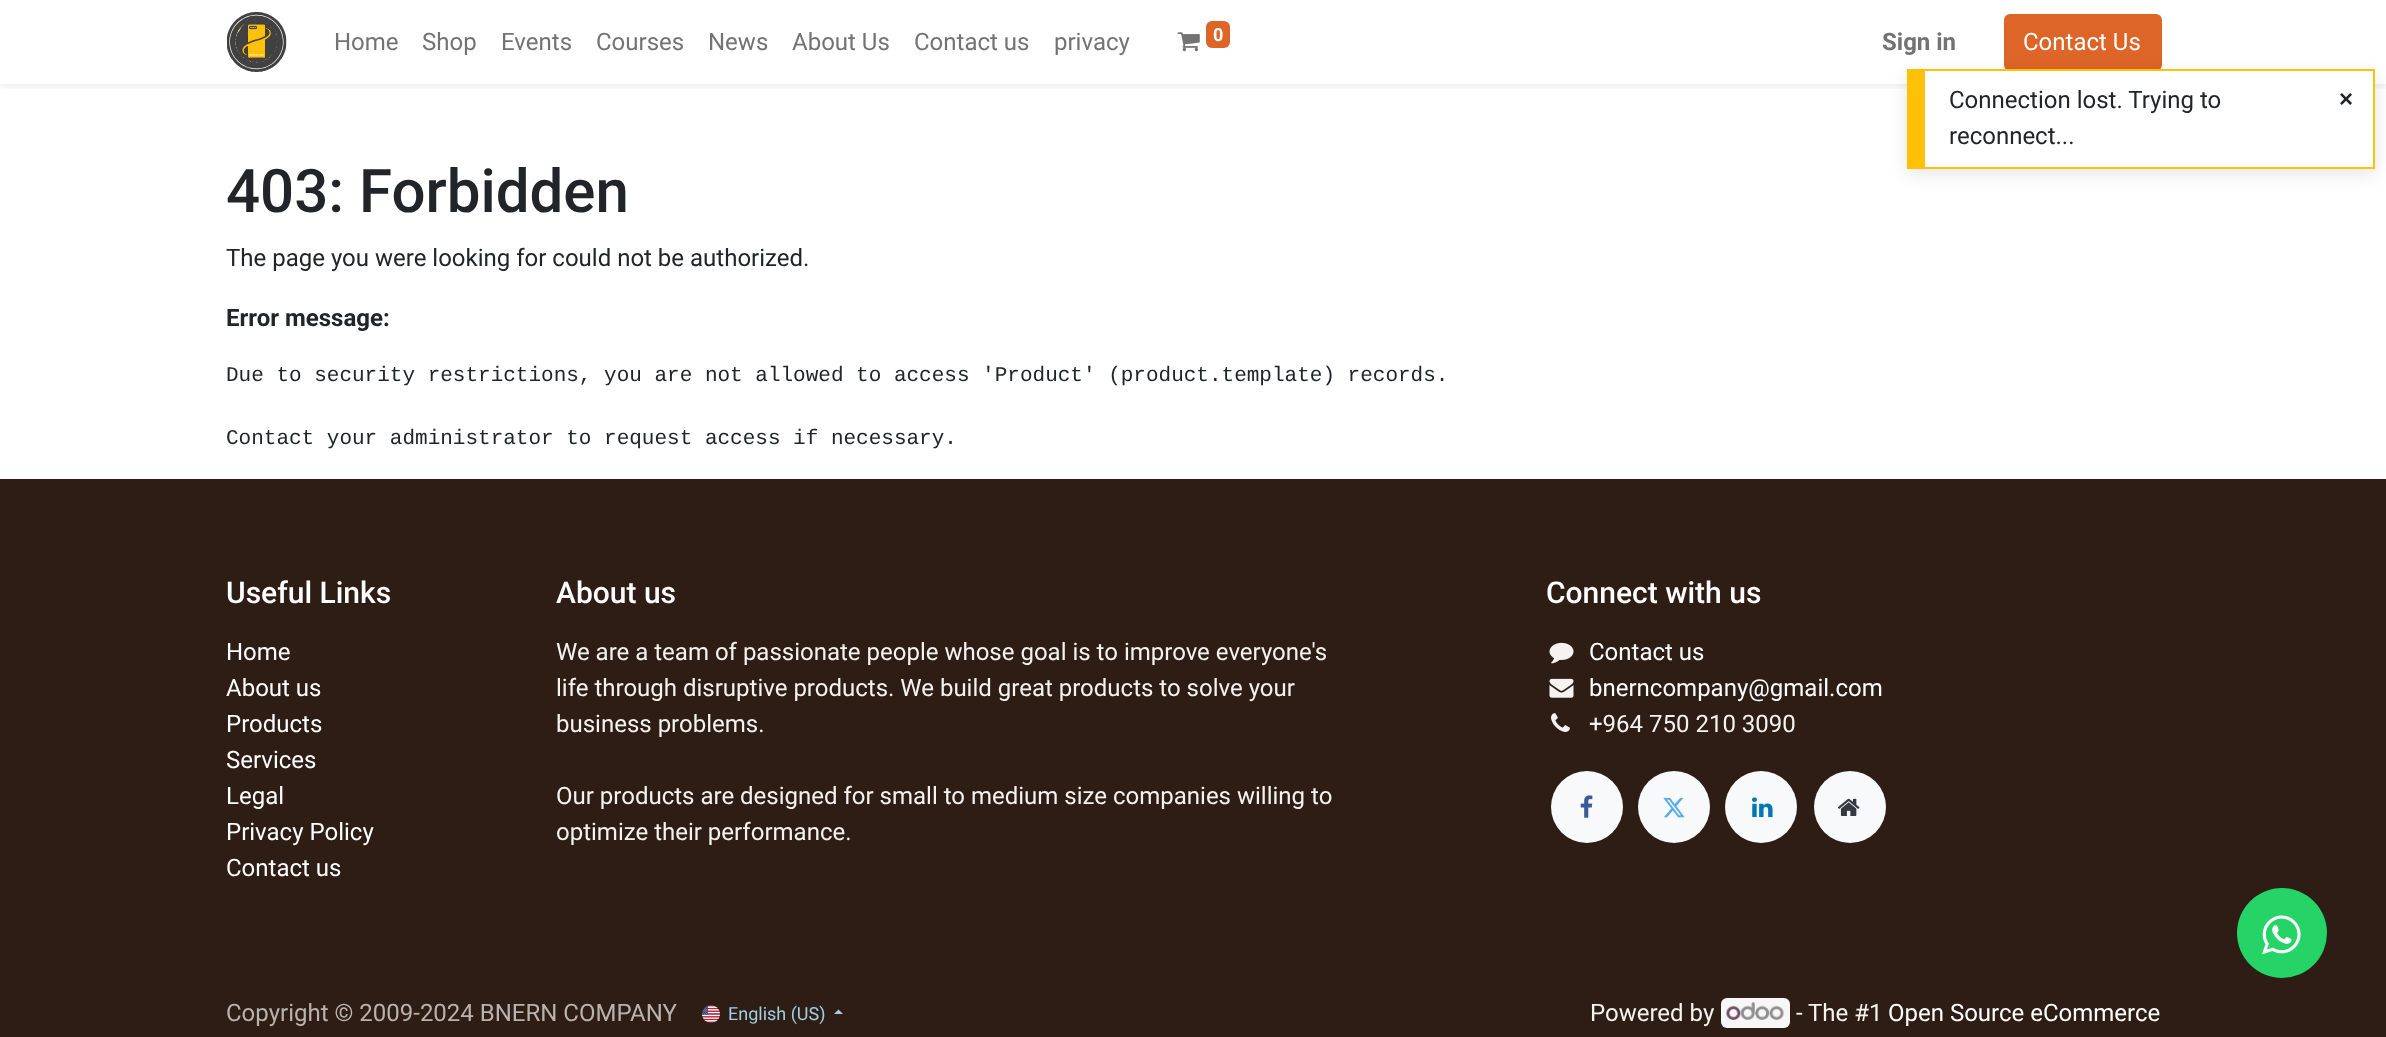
async function draw(canvas) {
	canvas.width = 2386;
	canvas.height = 1037;
	const c = canvas.getContext('2d');
	c.miterLimit = 4;
	c.fontKerning = 'normal';
	async function loadImage(src) {
		const img = new Image();
		img.src = src;
		await img.decode();
		return img;
	}

	c.fillStyle = '#fff';
	c.fillRect(0, 0, 2386, 1037);
	c.save();
	c.beginPath();
	c.rect(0, 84, 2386, 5);
	c.clip();
	c.fillStyle = '#00000012';
	c.filter = 'blur(3px)';
	c.beginPath();
	c.rect(0, 3, 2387, 84);
	c.fill();
	c.filter = 'none';
	c.restore();
	c.drawImage(await loadImage('img1.png'), 227, 12, 60, 60);
	c.font = '24px Roboto';
	c.fillStyle = '#737373';
	for (const [text, x, y] of [
		['Home', 334, 50],
		['Shop', 422, 50],
		['Events', 501, 50],
		['Courses', 596, 50],
		['News', 708, 50],
		['About Us', 792, 50],
		['Contact us', 914, 50],
		['privacy', 1054, 50],
	]) {
		c.fillText(text, x, y);
	}
	c.drawImage(await loadImage('img2.png'), 1177, 32, 23, 20);
	c.fillStyle = '#de6528';
	c.beginPath();
	c.roundRect(1206, 21, 24, 27, 6);
	c.fill();
	c.font = 'bold 18px Roboto';
	c.fillStyle = '#fff';
	c.fillText('0', 1213, 41);
	c.font = 'bold 24px Roboto';
	c.fillStyle = '#737373';
	c.fillText('Sign in', 1882, 50);
	c.fillStyle = '#de6528';
	c.beginPath();
	c.roundRect(2005, 15, 156, 55, 5);
	c.fill();
	c.strokeStyle = '#de6528';
	c.lineWidth = 2;
	c.stroke();
	c.font = '24px Roboto';
	c.fillStyle = '#fff';
	c.fillText('Contact Us', 2023, 50);
	c.font = '500 60px Roboto';
	c.fillStyle = '#212529';
	c.fillText('403: Forbidden', 226, 212);
	c.font = '24px Roboto';
	c.fillText('The page you were looking for could not be authorized.', 226, 266);
	c.font = 'bold 24px Roboto';
	c.fillText('Error message:', 226, 326);
	c.font = '21px Liberation Mono';
	c.fillText('Due to security restrictions, you are not allowed to access \'Product\' (product.template) records.', 226, 381);
	c.fillText('Contact your administrator to request access if necessary.', 226, 444);
	c.fillStyle = '#2e1d14';
	c.fillRect(0, 479, 2386, 558);
	c.font = '500 30px Roboto';
	c.fillStyle = '#fff';
	c.fillText('Useful Links', 226, 603);
	c.font = '24px Roboto';
	for (const [text, x, y] of [
		['Home', 226, 660],
		['About us', 226, 696],
		['Products', 226, 732],
		['Services', 226, 768],
		['Legal', 226, 804],
		['Privacy Policy', 226, 840],
		['Contact us', 226, 876],
	]) {
		c.fillText(text, x, y);
	}
	c.font = '500 30px Roboto';
	c.fillText('About us', 556, 603);
	c.font = '24px Roboto';
	c.fillStyle = '#f5f2f0';
	for (const [text, x, y] of [
		['We are a team of passionate people whose goal is to improve everyone\'s', 556, 660],
		['life through disruptive products. We build great products to solve your', 556, 696],
		['business problems.', 556, 732],
		['Our products are designed for small to medium size companies willing to', 556, 804],
		['optimize their performance.', 556, 840],
	]) {
		c.fillText(text, x, y);
	}
	c.font = '500 30px Roboto';
	c.fillStyle = '#fff';
	c.fillText('Connect with us', 1546, 603);
	c.drawImage(await loadImage('img3.png'), 1549, 642, 25, 22);
	c.font = '24px Roboto';
	c.fillText('Contact us', 1589, 660);
	c.drawImage(await loadImage('img4.png'), 1549, 678, 25, 20);
	c.fillText('bnerncompany@gmail.com', 1589, 696);
	c.drawImage(await loadImage('img5.png'), 1551, 713, 19, 19);
	c.fillStyle = '#f5f2f0';
	c.fillText('+964 750 210 3090', 1589, 732);
	c.fillStyle = '#f8f9fa';
	c.beginPath();
	c.arc(1587, 807, 36, 0, 2 * Math.PI);
	c.fill();
	c.drawImage(await loadImage('img6.png'), 1580, 795, 13, 23);
	c.beginPath();
	c.arc(1674, 807, 36, 0, 2 * Math.PI);
	c.fill();
	c.drawImage(await loadImage('img7.png'), 1663, 797, 22, 21);
	c.beginPath();
	c.arc(1761, 807, 36, 0, 2 * Math.PI);
	c.fill();
	c.drawImage(await loadImage('img8.png'), 1752, 797, 21, 21);
	c.beginPath();
	c.arc(1850, 807, 36, 0, 2 * Math.PI);
	c.fill();
	c.drawImage(await loadImage('img9.png'), 1837, 798, 23, 18);
	c.fillStyle = '#25d366';
	c.beginPath();
	c.arc(2282, 933, 45, 0, 2 * Math.PI);
	c.fill();
	c.drawImage(await loadImage('img10.png'), 2262, 915, 39, 40);
	c.fillStyle = '#b9b2ae';
	c.fillText('Copyright © 2009-2024 BNERN COMPANY', 226, 1021);
	c.drawImage(await loadImage('img11.png'), 702, 1005, 18, 18);
	c.font = '18px Roboto';
	c.fillStyle = '#a2cde3';
	c.fillText('English (US)', 728, 1020);
	c.beginPath();
	c.moveTo(843, 1014);
	c.lineTo(834, 1014);
	c.lineTo(838.5, 1009.5);
	c.closePath();
	c.fill();
	c.font = '24px Roboto';
	c.fillStyle = '#f5f2f0';
	c.fillText('Powered by', 1590, 1021);
	c.fillStyle = '#f7f7f7';
	c.beginPath();
	c.roundRect(1721, 998, 69, 30, 6);
	c.fill();
	c.drawImage(await loadImage('img12.png'), 1726, 1002, 58, 18);
	c.fillStyle = '#f5f2f0';
	c.fillText('-', 1796, 1021);
	c.fillText('The #1', 1808, 1021);
	c.fillStyle = '#fff';
	c.fillText('Open Source eCommerce', 1888, 1021);
	c.fillStyle = '#0000001a';
	c.filter = 'blur(9px)';
	c.beginPath();
	c.rect(1907, 75, 468, 99);
	c.fill();
	c.filter = 'none';
	for (const [x, y, w, h, color] of [
		[1925, 71, 448, 96, '#fff'],
		[1925, 69, 450, 2, '#ffc107'],
		[2373, 69, 2, 99, '#ffc107'],
		[1907, 167, 468, 2, '#ffc107'],
		[1907, 69, 18, 98, '#ffc107'],
	]) {
		c.fillStyle = color;
		c.fillRect(x, y, w, h);
	}
	c.fillStyle = '#212529';
	c.fillText('Connection lost. Trying to', 1949, 108);
	c.fillText('reconnect...', 1949, 144);
	c.font = 'bold 24px Liberation Sans';
	c.fillText('×', 2339, 107);
}

draw(document.querySelector('canvas'));
